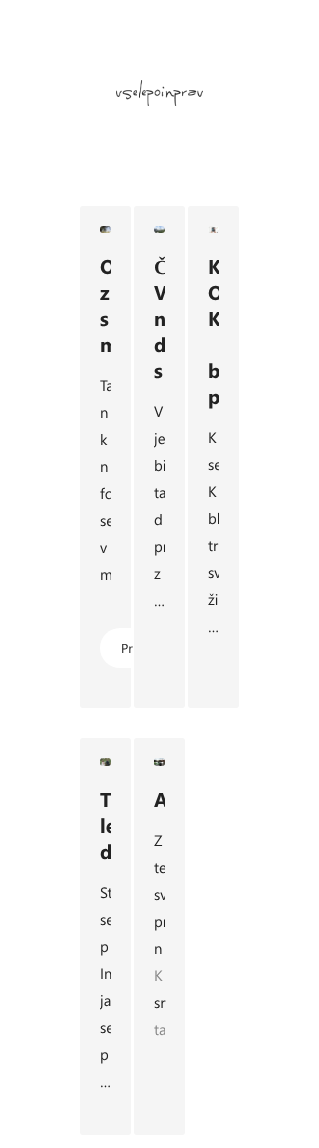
async function draw(canvas) {
	canvas.width = 319;
	canvas.height = 1148;
	const c = canvas.getContext('2d');
	c.miterLimit = 4;
	c.fontKerning = 'normal';
	async function loadImage(src) {
		const img = new Image();
		img.src = src;
		await img.decode();
		return img;
	}

	c.fillStyle = '#fff';
	c.fillRect(0, 0, 319, 1148);
	c.drawImage(await loadImage('img1.png'), 116, 80, 87, 26);
	c.fillStyle = '#f5f5f5';
	c.beginPath();
	c.roundRect(80, 206, 51, 502, 3);
	c.fill();
	c.drawImage(await loadImage('img2.png'), 100, 226, 11, 7);
	c.save();
	c.beginPath();
	c.rect(100, 233, 11, 129);
	c.clip();
	c.font = 'bold 20px Segoe UI';
	c.fillStyle = '#222';
	c.fillText('O', 100, 274);
	c.restore();
	c.font = 'bold 20px Segoe UI';
	c.fillStyle = '#222';
	c.fillText('z', 100, 300);
	c.fillText('s', 100, 326);
	c.save();
	c.beginPath();
	c.rect(100, 233, 11, 129);
	c.clip();
	c.fillText('m', 100, 352);
	c.restore();
	c.save();
	c.beginPath();
	c.rect(100, 372, 11, 216);
	c.clip();
	c.font = '15px Segoe UI';
	c.fillText('Ta', 100, 391);
	c.restore();
	c.font = '15px Segoe UI';
	for (const [text, x, y] of [
		['n', 100, 418],
		['k', 100, 445],
		['n', 100, 472],
	]) {
		c.fillText(text, x, y);
	}
	c.save();
	c.beginPath();
	c.rect(100, 372, 11, 216);
	c.clip();
	c.fillText('fo', 100, 499);
	c.fillText('se', 100, 526);
	c.restore();
	c.fillText('v', 100, 553);
	c.save();
	c.beginPath();
	c.rect(100, 372, 11, 216);
	c.clip();
	c.fillText('m', 100, 580);
	c.restore();
	c.fillStyle = '#fff';
	c.beginPath();
	c.roundRect(100, 628, 115, 40, 20);
	c.fill();
	c.font = '13px Segoe UI';
	c.fillStyle = '#222';
	c.fillText('Pr', 121, 653);
	c.fillStyle = '#f5f5f5';
	c.beginPath();
	c.roundRect(134, 206, 51, 502, 3);
	c.fill();
	c.drawImage(await loadImage('img3.png'), 154, 226, 11, 7);
	c.save();
	c.beginPath();
	c.rect(154, 233, 11, 155);
	c.clip();
	c.font = 'bold 20px Liberation Serif';
	c.fillStyle = '#222';
	c.fillText('Č', 154, 274);
	c.font = 'bold 20px Segoe UI';
	c.fillText('V', 154, 300);
	c.restore();
	c.font = 'bold 20px Segoe UI';
	c.fillStyle = '#222';
	c.fillText('n', 154, 326);
	c.save();
	c.beginPath();
	c.rect(154, 233, 11, 155);
	c.clip();
	c.fillText('d', 154, 352);
	c.restore();
	c.fillText('s', 154, 378);
	c.font = '15px Segoe UI';
	c.fillText('V', 154, 417);
	c.save();
	c.beginPath();
	c.rect(154, 398, 11, 216);
	c.clip();
	for (const [text, x, y] of [
		['je', 154, 444],
		['bi', 154, 471],
		['ta', 154, 498],
	]) {
		c.fillText(text, x, y);
	}
	c.restore();
	c.fillText('d', 154, 525);
	c.save();
	c.beginPath();
	c.rect(154, 398, 11, 216);
	c.clip();
	c.fillText('pr', 154, 552);
	c.restore();
	c.fillText('z', 154, 579);
	c.fillText('…', 154, 606);
	c.fillStyle = '#f5f5f5';
	c.beginPath();
	c.roundRect(188, 206, 51, 502, 3);
	c.fill();
	c.drawImage(await loadImage('img4.png'), 208, 226, 11, 7);
	c.save();
	c.beginPath();
	c.rect(208, 233, 11, 181);
	c.clip();
	c.font = 'bold 20px Segoe UI';
	c.fillStyle = '#222';
	for (const [text, x, y] of [
		['K', 208, 274],
		['O', 208, 300],
		['K', 208, 326],
		['b', 208, 378],
		['p', 208, 404],
	]) {
		c.fillText(text, x, y);
	}
	c.restore();
	c.fillStyle = '#222';
	c.fillText('K', 208, 443);
	c.save();
	c.beginPath();
	c.rect(208, 424, 11, 216);
	c.clip();
	c.fillText('se', 208, 470);
	c.restore();
	c.fillText('K', 208, 497);
	c.save();
	c.beginPath();
	c.rect(208, 424, 11, 216);
	c.clip();
	c.fillText('bl', 208, 524);
	c.restore();
	c.fillText('tr', 208, 551);
	c.save();
	c.beginPath();
	c.rect(208, 424, 11, 216);
	c.clip();
	c.fillText('sv', 208, 578);
	c.restore();
	c.fillText('ži', 208, 605);
	c.fillText('…', 208, 632);
	c.fillStyle = '#f5f5f5';
	c.beginPath();
	c.roundRect(80, 738, 51, 397, 3);
	c.fill();
	c.drawImage(await loadImage('img5.png'), 100, 758, 11, 8);
	c.save();
	c.beginPath();
	c.rect(100, 766, 11, 103);
	c.clip();
	c.font = 'bold 20px Segoe UI';
	c.fillStyle = '#222';
	for (const [text, x, y] of [
		['T', 100, 807],
		['le', 100, 833],
		['d', 100, 859],
	]) {
		c.fillText(text, x, y);
	}
	c.restore();
	c.save();
	c.beginPath();
	c.rect(100, 879, 11, 216);
	c.clip();
	c.fillStyle = '#222';
	c.fillText('St', 100, 898);
	c.fillText('se', 100, 925);
	c.restore();
	c.fillStyle = '#222';
	c.fillText('p', 100, 952);
	c.save();
	c.beginPath();
	c.rect(100, 879, 11, 216);
	c.clip();
	for (const [text, x, y] of [
		['In', 100, 979],
		['ja', 100, 1006],
		['se', 100, 1033],
	]) {
		c.fillText(text, x, y);
	}
	c.restore();
	c.fillText('p', 100, 1060);
	c.fillText('…', 100, 1087);
	c.fillStyle = '#f5f5f5';
	c.beginPath();
	c.roundRect(134, 738, 51, 397, 3);
	c.fill();
	c.drawImage(await loadImage('img6.png'), 154, 758, 11, 8);
	c.save();
	c.beginPath();
	c.rect(154, 766, 11, 51);
	c.clip();
	c.font = 'bold 20px Segoe UI';
	c.fillStyle = '#222';
	c.fillText('A', 154, 807);
	c.restore();
	c.fillStyle = '#222';
	c.fillText('Z', 154, 846);
	c.save();
	c.beginPath();
	c.rect(154, 827, 11, 216);
	c.clip();
	for (const [text, x, y] of [
		['te', 154, 873],
		['sv', 154, 900],
		['pr', 154, 927],
	]) {
		c.fillText(text, x, y);
	}
	c.restore();
	c.fillText('n', 154, 954);
	c.fillStyle = '#888';
	c.fillText('K', 154, 981);
	c.fillStyle = '#222';
	c.fillText('sr', 154, 1008);
	c.save();
	c.beginPath();
	c.rect(154, 827, 11, 216);
	c.clip();
	c.fillStyle = '#888';
	c.fillText('ta', 154, 1035);
	c.restore();
}

draw(document.querySelector('canvas'));
